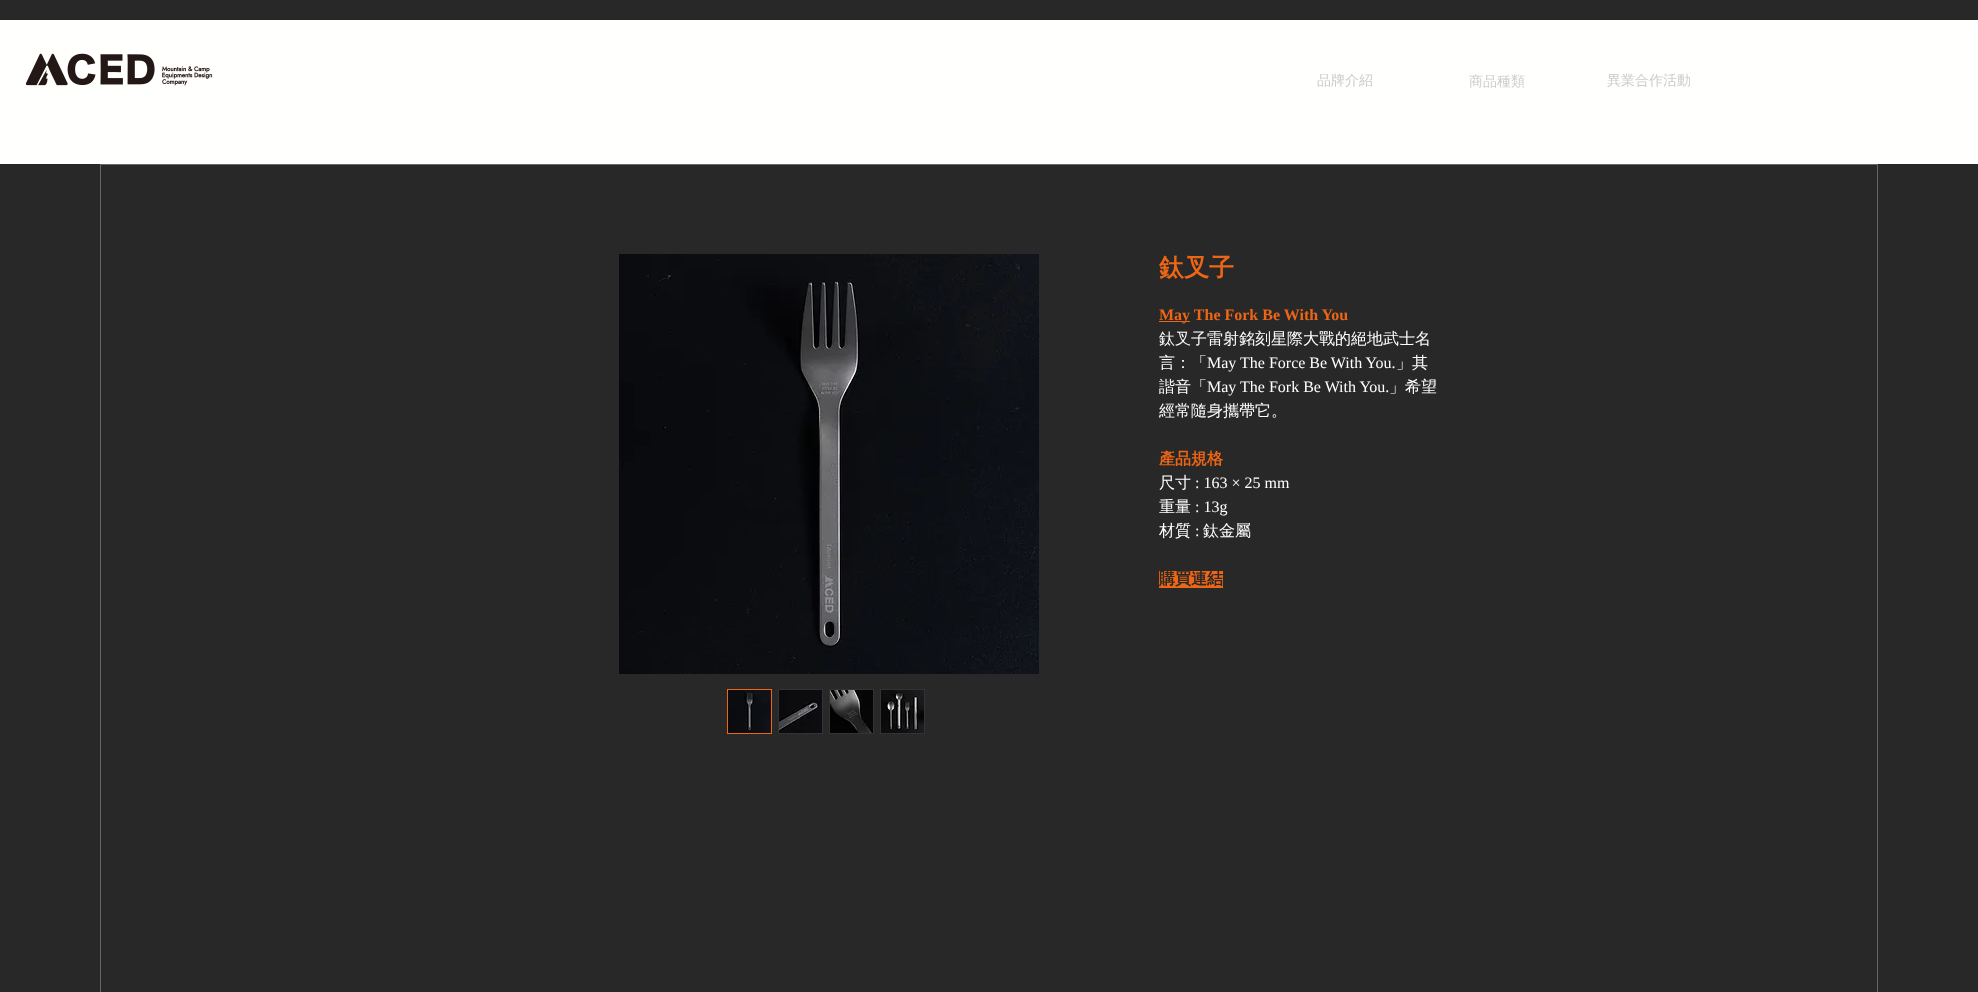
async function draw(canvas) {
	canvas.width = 1978;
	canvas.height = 992;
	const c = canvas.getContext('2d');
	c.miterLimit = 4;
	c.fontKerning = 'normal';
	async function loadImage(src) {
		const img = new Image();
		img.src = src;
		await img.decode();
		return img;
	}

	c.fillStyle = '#282828';
	c.fillRect(0, 0, 1978, 992);
	c.fillStyle = '#fffffe';
	c.fillRect(0, 20, 1978, 144);
	c.drawImage(await loadImage('img1.png'), 25, 53, 188, 33);
	c.font = '500 14px WenQuanYi Zen Hei';
	c.fillStyle = '#ccc';
	for (const [text, x, y] of [
		['品牌介紹', 1317, 85],
		['商品種類', 1469, 86],
		['異業合作活動', 1607, 85],
	]) {
		c.fillText(text, x, y);
	}
	c.fillStyle = '#666';
	c.fillRect(100, 164, 1778, 828);
	c.fillStyle = '#282828';
	c.fillRect(101, 165, 1776, 827);
	c.drawImage(await loadImage('img2.png'), 619, 254, 420, 420);
	c.strokeStyle = '#ed6615';
	c.strokeRect(727.5, 689.5, 44, 44);
	c.drawImage(await loadImage('img3.png'), 728, 690, 43, 43);
	c.fillStyle = '#333';
	c.fillRect(778, 689, 45, 45);
	c.drawImage(await loadImage('img4.png'), 779, 690, 43, 43);
	c.fillRect(829, 689, 45, 45);
	c.drawImage(await loadImage('img5.png'), 830, 690, 43, 43);
	c.fillRect(880, 689, 45, 45);
	c.drawImage(await loadImage('img6.png'), 881, 690, 43, 43);
	c.font = 'bold 25px WenQuanYi Zen Hei';
	c.fillStyle = '#ed6615';
	c.fillText('鈦叉子', 1159, 276);
	c.fillRect(1159, 321, 31, 1);
	c.font = 'bold 16px Liberation Serif';
	c.fillText('May The Fork Be With You', 1159, 320);
	c.font = '500 16px WenQuanYi Zen Hei';
	c.fillStyle = '#fff';
	c.fillText('鈦叉子雷射銘刻星際大戰的絕地武士名', 1159, 344);
	c.fillText('言：「', 1159, 368);
	c.font = '16px Liberation Serif';
	c.fillText('May The Force Be With You.', 1207, 368);
	c.font = '500 16px WenQuanYi Zen Hei';
	c.fillText('」其', 1396, 368);
	c.fillText('諧音「', 1159, 392);
	c.font = '16px Liberation Serif';
	c.fillText('May The Fork Be With You.', 1207, 392);
	c.font = '500 16px WenQuanYi Zen Hei';
	c.fillText('」希望', 1389, 392);
	c.fillText('經常隨身攜帶它。', 1159, 416);
	c.font = 'bold 16px WenQuanYi Zen Hei';
	c.fillStyle = '#ed6615';
	c.fillText('產品規格', 1159, 464);
	c.font = '500 16px WenQuanYi Zen Hei';
	c.fillStyle = '#fff';
	c.fillText('尺寸', 1159, 488);
	c.font = '16px Liberation Serif';
	c.fillText(': 163 × 25 mm', 1195, 488);
	c.font = '500 16px WenQuanYi Zen Hei';
	c.fillText('重量', 1159, 512);
	c.font = '16px Liberation Serif';
	c.fillText(': 13g', 1195, 512);
	c.font = '500 16px WenQuanYi Zen Hei';
	c.fillText('材質', 1159, 536);
	c.font = '16px Liberation Serif';
	c.fillText(':', 1195, 536);
	c.font = '500 16px WenQuanYi Zen Hei';
	c.fillText('鈦金屬', 1203, 536);
	c.fillStyle = '#ed6615';
	c.fillRect(1159, 571, 64, 17);
	c.font = 'bold 16px WenQuanYi Zen Hei';
	c.fillStyle = '#282828';
	c.fillText('購買連結', 1159, 584);
}

draw(document.querySelector('canvas'));
